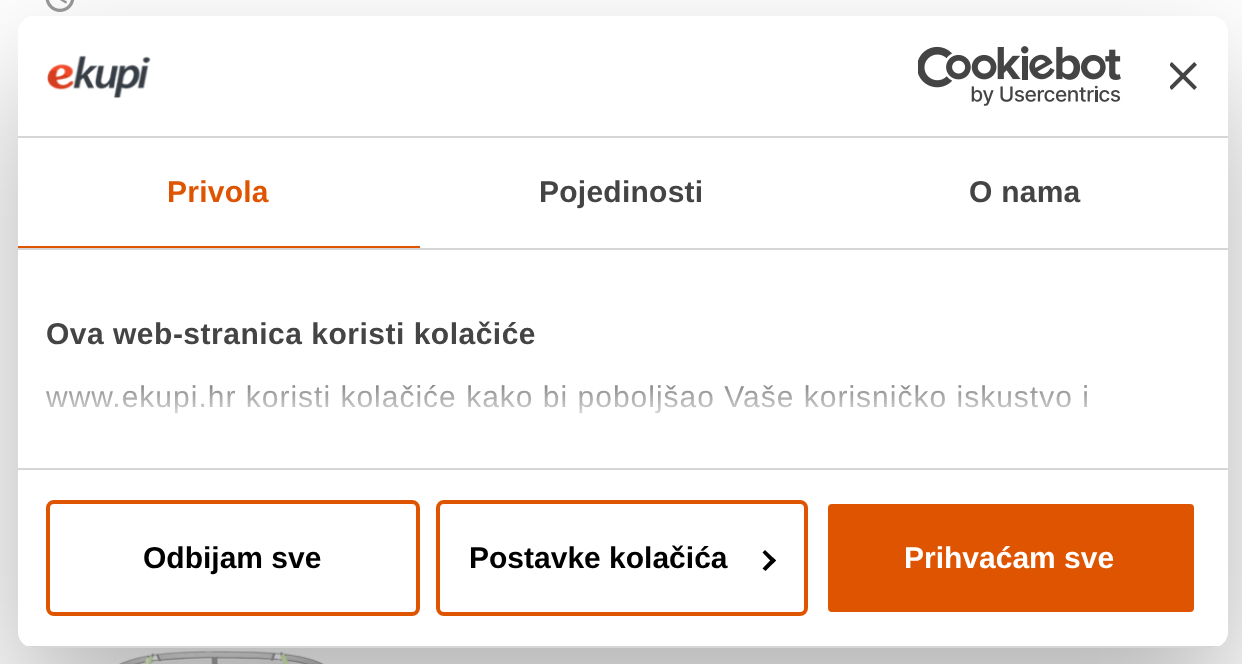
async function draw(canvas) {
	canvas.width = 1242;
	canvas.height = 664;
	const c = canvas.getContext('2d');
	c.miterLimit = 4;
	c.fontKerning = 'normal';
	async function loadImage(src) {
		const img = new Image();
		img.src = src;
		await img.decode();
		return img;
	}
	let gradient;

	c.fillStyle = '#fff';
	c.fillRect(0, 0, 1242, 664);
	c.drawImage(await loadImage('img1.png'), 45, 0, 30, 12);
	c.drawImage(await loadImage('img2.png'), 118, 650, 206, 14);
	c.fillStyle = '#0000004d';
	c.filter = 'blur(68px)';
	c.beginPath();
	c.roundRect(18, 80, 1210, 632, 16);
	c.fill();
	c.filter = 'none';
	c.fillStyle = '#fff';
	c.beginPath();
	c.roundRect(18, 16, 1210, 632, 16);
	c.fill();
	c.fillStyle = '#d6d6d6';
	c.fillRect(18, 136, 1210, 2);
	c.drawImage(await loadImage('img3.png'), 47, 55, 104, 44);
	c.drawImage(await loadImage('img4.png'), 918, 46, 203, 60);
	c.drawImage(await loadImage('img5.png'), 1170, 62, 27, 28);
	c.fillRect(18, 248, 1210, 2);
	c.fillStyle = '#de5401';
	c.fillRect(18, 246, 402, 2);
	c.letterSpacing = '0.25px';
	c.font = 'bold 30px Liberation Sans';
	c.fillText('Privola', 167, 202);
	c.fillStyle = '#444';
	c.fillText('Pojedinosti', 539, 202);
	c.fillText('O nama', 969, 202);
	c.fillStyle = '#d6d6d6';
	c.fillRect(18, 468, 1210, 2);
	c.letterSpacing = '0.5px';
	c.fillStyle = '#444';
	c.fillText('Ova web-stranica koristi kolačiće', 46, 344);
	c.letterSpacing = '1px';
	c.font = '30px Liberation Sans';
	c.fillText('www.ekupi.hr koristi kolačiće kako bi poboljšao Vaše korisničko iskustvo i', 46, 407);
	gradient = c.createLinearGradient(609, 468, 609, 360);
	gradient.addColorStop(0, '#fff');
	gradient.addColorStop(0.5, '#ffffffcc');
	gradient.addColorStop(1, '#ffffff00');
	c.fillStyle = gradient;
	c.fillRect(46, 384, 1041, 30);
	c.save();
	c.beginPath();
	c.roundRect(18, 16, 1210, 632, 16);
	c.clip();
	c.fillStyle = '#d6d6d6';
	c.fillRect(18, 646, 1210, 2);
	c.restore();
	c.beginPath();
	c.roundRect(48, 502, 370, 112, 6);
	c.strokeStyle = '#de5401';
	c.lineWidth = 4;
	c.stroke();
	c.letterSpacing = '0px';
	c.font = 'bold 30px Liberation Sans';
	c.fillStyle = '#000';
	c.fillText('Odbijam sve', 143, 568);
	c.beginPath();
	c.roundRect(438, 502, 368, 112, 6);
	c.stroke();
	c.fillText('Postavke kolačića', 469, 568);
	c.beginPath();
	c.moveTo(765, 550);
	c.lineTo(776, 560.5);
	c.lineTo(773, 563.5);
	c.lineTo(762.5, 552.5);
	c.closePath();
	c.fill();
	c.beginPath();
	c.moveTo(773, 557.5);
	c.lineTo(776, 560.5);
	c.lineTo(765.5, 571);
	c.lineTo(762.5, 568.5);
	c.closePath();
	c.fill();
	c.fillStyle = '#de5401';
	c.beginPath();
	c.roundRect(826, 502, 370, 112, 6);
	c.fill();
	c.strokeStyle = '#fff';
	c.stroke();
	c.fillStyle = '#fff';
	c.fillText('Prihvaćam sve', 904, 568);
}

draw(document.querySelector('canvas'));
